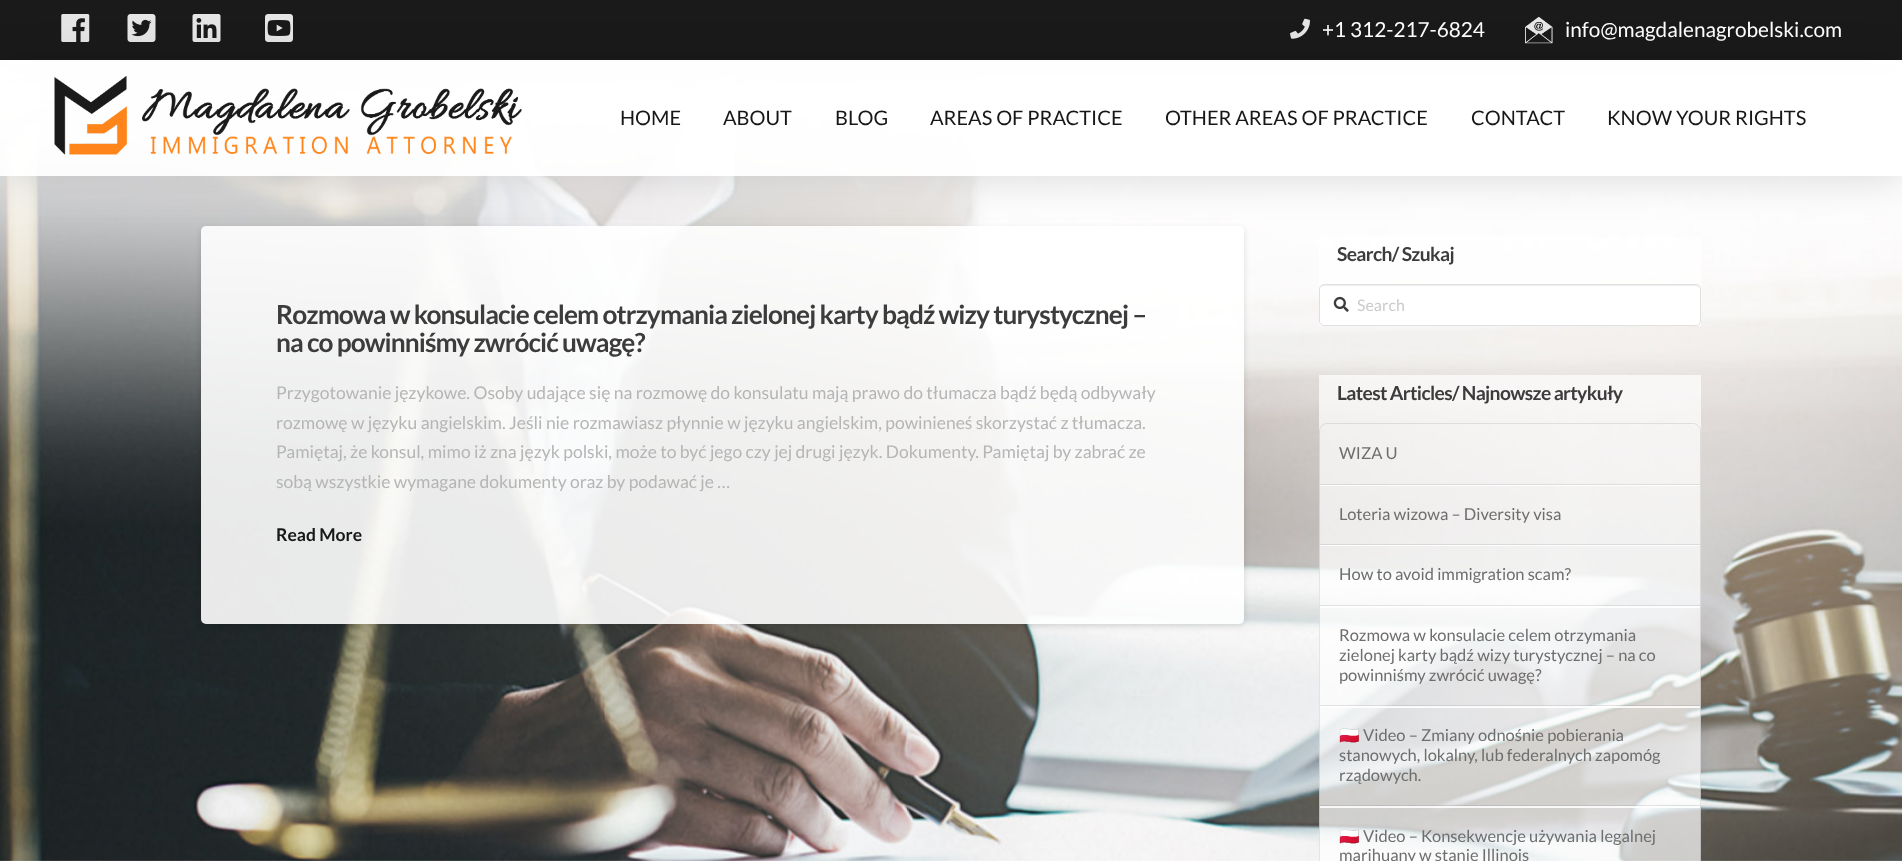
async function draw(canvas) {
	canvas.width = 1902;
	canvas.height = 861;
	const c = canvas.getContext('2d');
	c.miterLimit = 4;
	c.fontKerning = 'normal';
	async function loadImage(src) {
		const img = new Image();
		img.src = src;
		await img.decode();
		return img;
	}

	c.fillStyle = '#fff';
	c.fillRect(0, 0, 1902, 861);
	c.drawImage(await loadImage('img1.png'), 0, 78, 1902, 783);
	c.fillStyle = '#00000024';
	c.filter = 'blur(20px)';
	c.beginPath();
	c.rect(0, 3, 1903, 60);
	c.fill();
	c.filter = 'none';
	c.fillStyle = '#1a1a1a';
	c.fillRect(0, 0, 1902, 60);
	c.drawImage(await loadImage('img2.png'), 61, 14, 29, 28);
	c.drawImage(await loadImage('img3.png'), 127, 14, 29, 28);
	c.drawImage(await loadImage('img4.png'), 192, 14, 29, 28);
	c.drawImage(await loadImage('img5.png'), 265, 14, 28, 28);
	c.drawImage(await loadImage('img6.png'), 1290, 18, 20, 21);
	c.font = '20.75px Lato';
	c.fillStyle = '#fff';
	c.fillText('+1 312-217-6824', 1322, 37);
	c.drawImage(await loadImage('img7.png'), 1525, 16, 28, 28);
	c.fillText('info@magdalenagrobelski.com', 1565, 37);
	c.save();
	c.beginPath();
	c.moveTo(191, 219);
	c.lineTo(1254, 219);
	c.lineTo(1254, 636);
	c.lineTo(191, 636);
	c.closePath();
	c.moveTo(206, 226);
	c.lineTo(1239, 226);
	c.bezierCurveTo(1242, 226, 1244, 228, 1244, 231);
	c.lineTo(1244, 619);
	c.bezierCurveTo(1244, 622, 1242, 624, 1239, 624);
	c.lineTo(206, 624);
	c.bezierCurveTo(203, 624, 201, 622, 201, 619);
	c.lineTo(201, 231);
	c.bezierCurveTo(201, 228, 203, 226, 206, 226);
	c.closePath();
	c.clip('evenodd');
	c.fillStyle = '#0000001f';
	c.filter = 'blur(3px)';
	c.beginPath();
	c.roundRect(201, 229, 1043, 397, 5);
	c.fill();
	c.filter = 'none';
	c.restore();
	c.fillStyle = '#ffffffe6';
	c.beginPath();
	c.roundRect(201, 226, 1043, 398, 5);
	c.fill();
	c.fillStyle = '#ffffffb5';
	c.fillRect(1319, 237, 382, 89);
	c.save();
	c.beginPath();
	c.moveTo(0, 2);
	c.lineTo(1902, 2);
	c.lineTo(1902, 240);
	c.lineTo(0, 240);
	c.closePath();
	c.moveTo(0, 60);
	c.lineTo(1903, 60);
	c.lineTo(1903, 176);
	c.lineTo(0, 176);
	c.closePath();
	c.clip('evenodd');
	c.fillStyle = '#00000024';
	c.filter = 'blur(20px)';
	c.beginPath();
	c.rect(0, 63, 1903, 116);
	c.fill();
	c.filter = 'none';
	c.restore();
	c.fillStyle = '#ffffffe6';
	c.fillRect(0, 60, 1902, 116);
	c.drawImage(await loadImage('img8.png'), 54, 75, 468, 80);
	c.font = '20px Lato';
	c.fillStyle = '#171717';
	for (const [text, x, y] of [
		['HOME', 620, 125],
		['ABOUT', 723, 125],
		['BLOG', 835, 125],
		['AREAS OF PRACTICE', 930, 125],
		['OTHER AREAS OF PRACTICE', 1165, 125],
		['CONTACT', 1471, 125],
		['KNOW YOUR RIGHTS', 1607, 125],
	]) {
		c.fillText(text, x, y);
	}
	c.letterSpacing = '-0.92px';
	c.font = 'bold 26.25px Lato';
	c.fillStyle = '#3d3c3d';
	c.fillText('Rozmowa w konsulacie celem otrzymania zielonej karty bądź wizy turystycznej –', 276, 324);
	c.fillText('na co powinniśmy zwrócić uwagę?', 276, 352);
	c.letterSpacing = '0px';
	c.font = '17.5px Lato';
	c.fillStyle = '#b6b5b5';
	for (const [text, x, y] of [
		['Przygotowanie językowe. Osoby udające się na rozmowę do konsulatu mają prawo do tłumacza bądź będą odbywały', 276, 399],
		['rozmowę w języku angielskim. Jeśli nie rozmawiasz płynnie w języku angielskim, powinieneś skorzystać z tłumacza.', 276, 429],
		['Pamiętaj, że konsul, mimo iż zna język polski, może to być jego czy jej drugi język. Dokumenty. Pamiętaj by zabrać ze', 276, 458],
		['sobą wszystkie wymagane dokumenty oraz by podawać je …', 276, 488],
	]) {
		c.fillText(text, x, y);
	}
	c.font = 'bold 17.5px Lato';
	c.fillStyle = '#171717';
	c.fillText('Read More', 276, 541);
	c.letterSpacing = '-0.65px';
	c.font = 'bold 19.25px Lato';
	c.fillStyle = '#3d3c3d';
	c.fillText('Search/ Szukaj', 1337, 261);
	c.fillStyle = '#ffffffe6';
	c.beginPath();
	c.roundRect(1319, 284, 382, 42, 5);
	c.fill();
	c.fillStyle = '#eee';
	c.beginPath();
	c.moveTo(1324, 286);
	c.lineTo(1696, 286);
	c.bezierCurveTo(1698, 286, 1700, 288, 1700, 290);
	c.bezierCurveTo(1700, 287, 1699, 285, 1696, 285);
	c.lineTo(1324, 285);
	c.bezierCurveTo(1321, 285, 1320, 287, 1320, 290);
	c.bezierCurveTo(1320, 288, 1322, 286, 1324, 286);
	c.closePath();
	c.fill();
	c.beginPath();
	c.roundRect(1319.5, 284.5, 381, 41, 4.5);
	c.strokeStyle = '#dddddde6';
	c.stroke();
	c.drawImage(await loadImage('img9.png'), 1333, 296, 16, 16);
	c.letterSpacing = '0px';
	c.font = '16px Lato';
	c.fillStyle = '#cbcbcb';
	c.fillText('Search', 1357, 311);
	c.fillStyle = '#ffffffb5';
	c.fillRect(1319, 375, 382, 486);
	c.letterSpacing = '-0.65px';
	c.font = 'bold 19.25px Lato';
	c.fillStyle = '#3d3c3d';
	c.fillText('Latest Articles/ Najnowsze artykuły', 1337, 400);
	c.save();
	c.beginPath();
	c.moveTo(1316, 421);
	c.lineTo(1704, 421);
	c.lineTo(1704, 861);
	c.lineTo(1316, 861);
	c.closePath();
	c.moveTo(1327, 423);
	c.lineTo(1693, 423);
	c.bezierCurveTo(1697.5, 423, 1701, 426.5, 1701, 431);
	c.lineTo(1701, 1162);
	c.bezierCurveTo(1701, 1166.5, 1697.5, 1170, 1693, 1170);
	c.lineTo(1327, 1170);
	c.bezierCurveTo(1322.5, 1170, 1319, 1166.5, 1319, 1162);
	c.lineTo(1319, 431);
	c.bezierCurveTo(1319, 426.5, 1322.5, 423, 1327, 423);
	c.closePath();
	c.clip('evenodd');
	c.fillStyle = '#ffffffd9';
	c.filter = 'blur(0.5px)';
	c.beginPath();
	c.roundRect(1319, 424, 382, 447, 8);
	c.fill();
	c.filter = 'none';
	c.restore();
	c.beginPath();
	c.roundRect(1319.5, 423.5, 381, 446, 7.5);
	c.strokeStyle = '#00000017';
	c.stroke();
	c.save();
	c.beginPath();
	c.rect(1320, 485, 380, 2);
	c.clip();
	c.fillStyle = '#ffffffd9';
	c.filter = 'blur(0.5px)';
	c.beginPath();
	c.rect(1320, 425, 380, 61);
	c.fill();
	c.filter = 'none';
	c.restore();
	c.fillStyle = '#00000017';
	c.fillRect(1320, 484, 380, 1);
	c.letterSpacing = '0px';
	c.font = '16.5px Lato';
	c.fillStyle = '#6f6e6e';
	c.fillText('WIZA U', 1339, 459);
	c.save();
	c.beginPath();
	c.rect(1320, 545, 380, 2);
	c.clip();
	c.fillStyle = '#ffffffd9';
	c.filter = 'blur(0.5px)';
	c.beginPath();
	c.rect(1320, 486, 380, 60);
	c.fill();
	c.filter = 'none';
	c.restore();
	c.fillStyle = '#00000017';
	c.fillRect(1320, 544, 380, 1);
	c.fillStyle = '#6f6e6e';
	c.fillText('Loteria wizowa – Diversity visa', 1339, 520);
	c.save();
	c.beginPath();
	c.rect(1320, 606, 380, 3);
	c.clip();
	c.fillStyle = '#ffffffd9';
	c.filter = 'blur(0.5px)';
	c.beginPath();
	c.rect(1320, 546, 380, 62);
	c.fill();
	c.filter = 'none';
	c.restore();
	c.fillStyle = '#00000017';
	c.fillRect(1320, 605, 380, 1);
	c.fillStyle = '#6f6e6e';
	c.fillText('How to avoid immigration scam?', 1339, 580);
	c.save();
	c.beginPath();
	c.rect(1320, 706, 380, 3);
	c.clip();
	c.fillStyle = '#ffffffd9';
	c.filter = 'blur(0.5px)';
	c.beginPath();
	c.rect(1320, 608, 380, 100);
	c.fill();
	c.filter = 'none';
	c.restore();
	c.fillStyle = '#00000017';
	c.fillRect(1320, 705, 380, 1);
	c.fillStyle = '#6f6e6e';
	for (const [text, x, y] of [
		['Rozmowa w konsulacie celem otrzymania', 1339, 641],
		['zielonej karty bądź wizy turystycznej – na co', 1339, 661],
		['powinniśmy zwrócić uwagę?', 1339, 681],
	]) {
		c.fillText(text, x, y);
	}
	c.save();
	c.beginPath();
	c.rect(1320, 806, 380, 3);
	c.clip();
	c.fillStyle = '#ffffffd9';
	c.filter = 'blur(0.5px)';
	c.beginPath();
	c.rect(1320, 708, 380, 100);
	c.fill();
	c.filter = 'none';
	c.restore();
	c.fillStyle = '#00000017';
	c.fillRect(1320, 805, 380, 1);
	c.font = '16.5px Noto Color Emoji';
	c.fillStyle = '#6f6e6e';
	c.fillText('🇵🇱', 1339, 741);
	c.font = '16.5px Lato';
	for (const [text, x, y] of [
		['Video – Zmiany odnośnie pobierania', 1363, 741],
		['stanowych, lokalny, lub federalnych zapomóg', 1339, 761],
		['rządowych.', 1339, 781],
	]) {
		c.fillText(text, x, y);
	}
	c.font = '16.5px Noto Color Emoji';
	c.fillText('🇵🇱', 1339, 842);
	c.font = '16.5px Lato';
	c.fillText('Video – Konsekwencje używania legalnej', 1363, 842);
	c.fillText('marihuany w stanie Illinois', 1339, 861);
}

draw(document.querySelector('canvas'));
